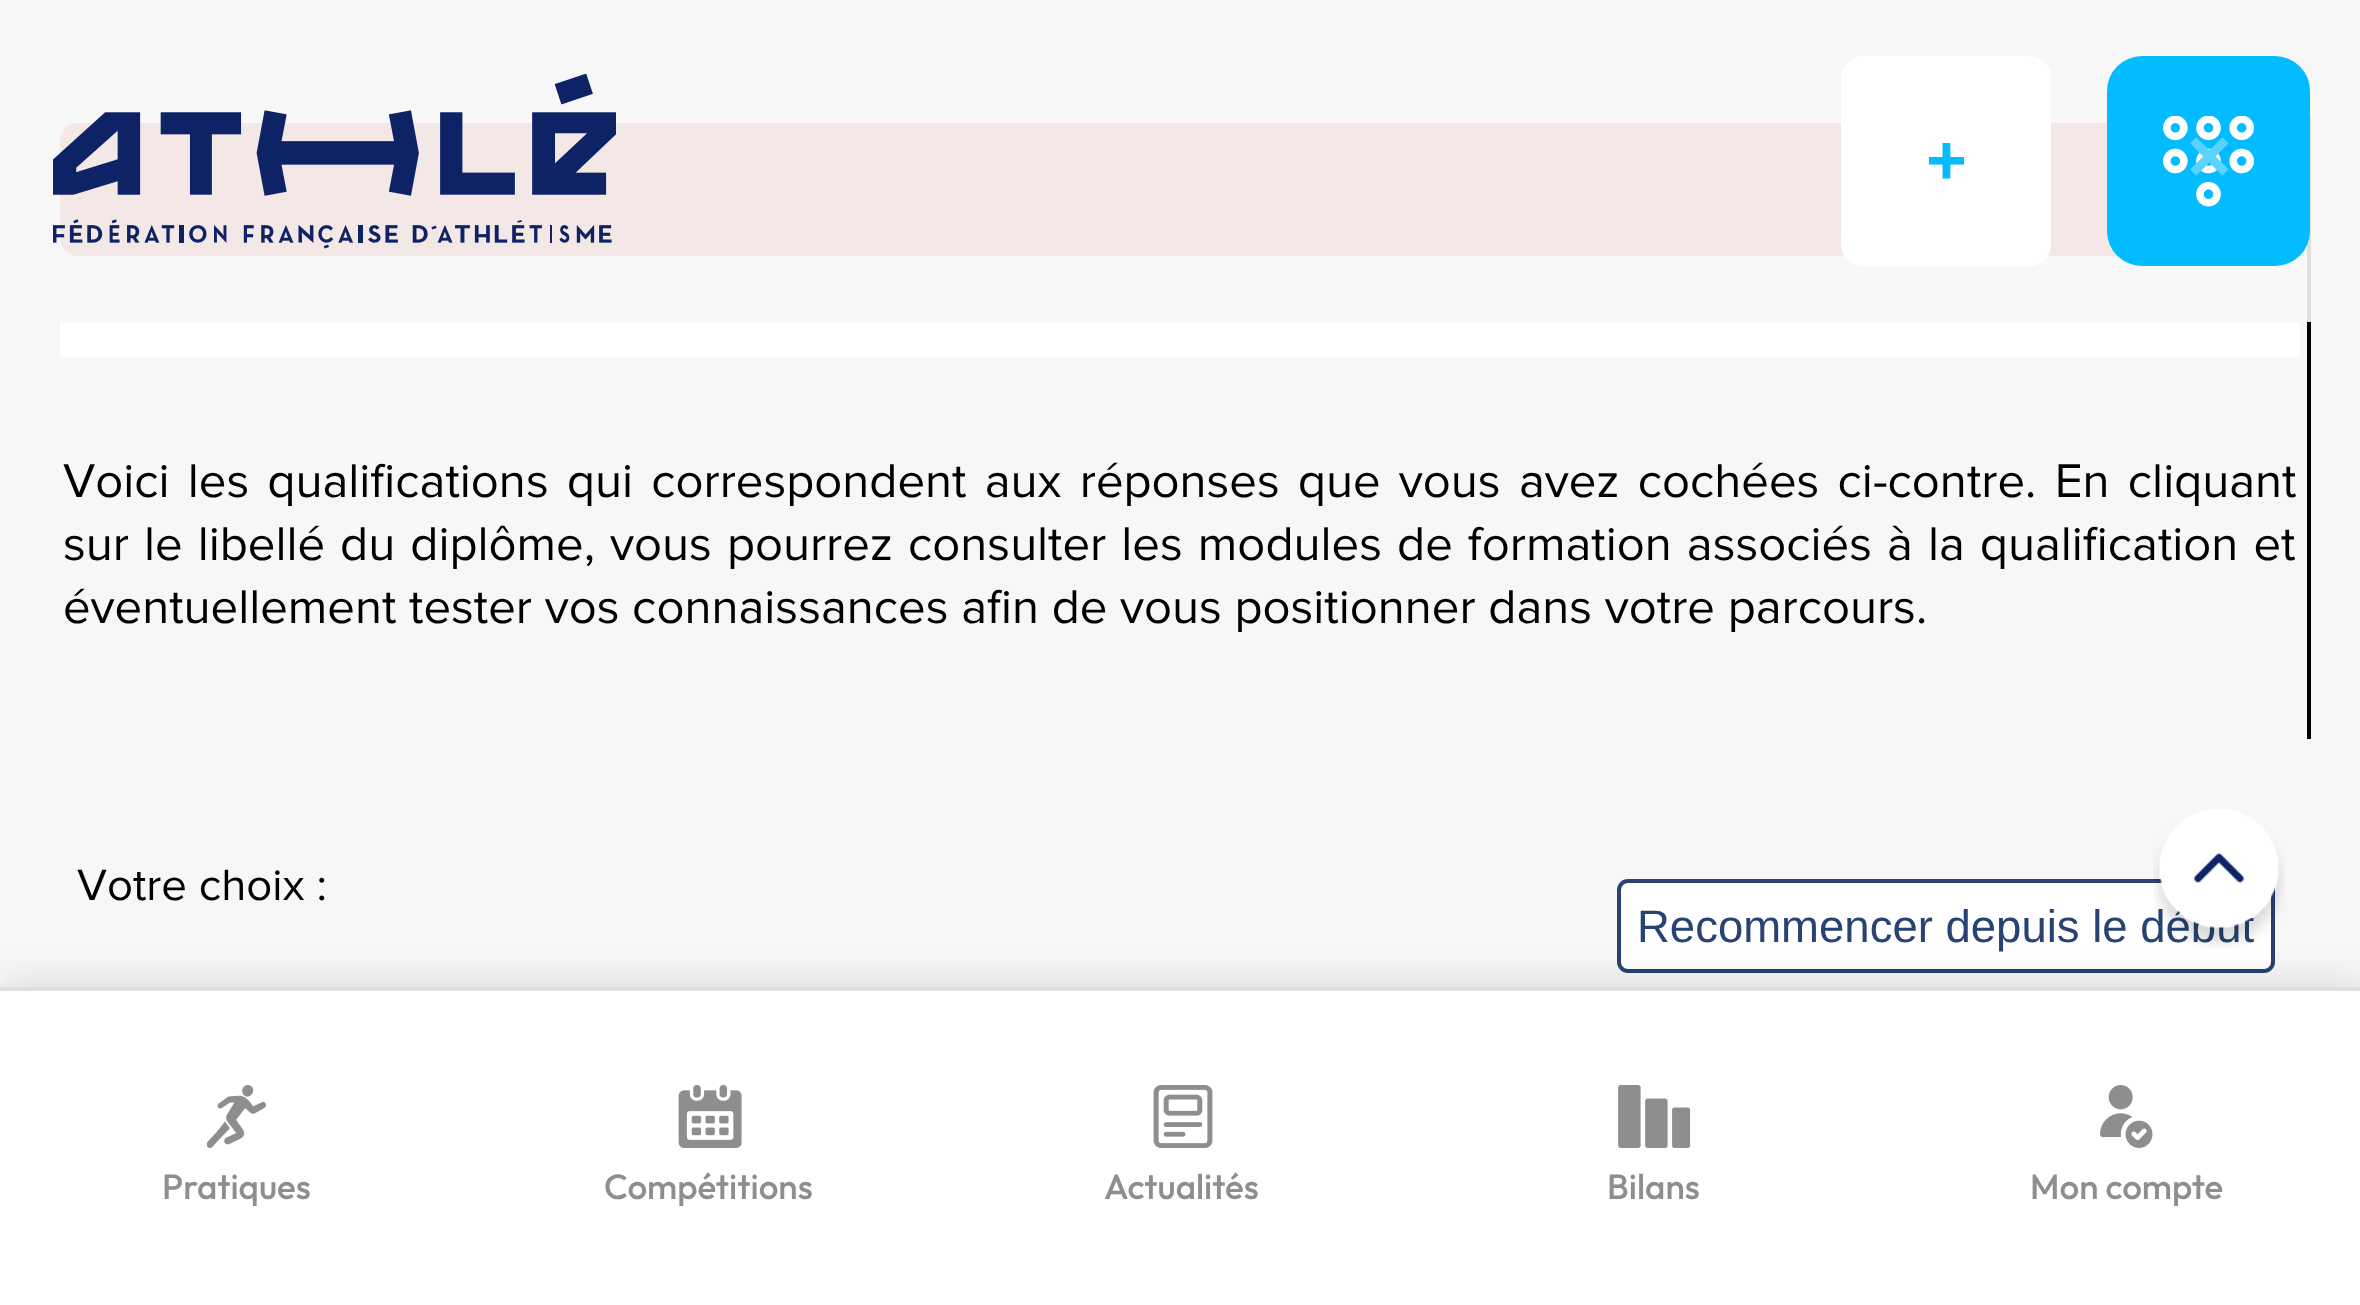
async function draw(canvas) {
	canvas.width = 2360;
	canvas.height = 1305;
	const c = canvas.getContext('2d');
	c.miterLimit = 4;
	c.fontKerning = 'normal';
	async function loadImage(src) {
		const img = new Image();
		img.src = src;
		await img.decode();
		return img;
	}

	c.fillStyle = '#f7f7f7';
	c.fillRect(0, 0, 2360, 1305);
	c.fillStyle = '#000';
	c.fillRect(2307, 116, 4, 623);
	c.fillStyle = '#cd5c4c';
	c.beginPath();
	c.roundRect(60, 123, 2240, 133, 18);
	c.fill();
	c.fillStyle = '#fff';
	c.fillRect(60, 263, 2240, 94);
	c.fillStyle = '#f7f7f7e6';
	c.fillRect(60, 116, 2251, 206);
	c.drawImage(await loadImage('img1.png'), 53, 74, 563, 175);
	c.fillStyle = '#fff';
	c.beginPath();
	c.roundRect(1841, 56, 210, 210, 21);
	c.fill();
	c.font = 'bold 70px Liberation Sans';
	c.fillStyle = '#02bcff';
	c.fillText('+', 1926, 184);
	c.beginPath();
	c.roundRect(2107, 56, 203, 210, 35);
	c.fill();
	c.drawImage(await loadImage('img2.png'), 2163, 116, 91, 91);
	c.font = '900 91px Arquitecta';
	c.fillStyle = '#5ad3ff';
	c.fillText('×', 2186, 184);
	c.wordSpacing = '5.6px';
	c.font = '49px Proxima Nova';
	c.fillStyle = '#000';
	c.fillText('Voici les qualifications qui correspondent aux réponses que vous avez cochées ci-contre. En cliquant', 63, 497);
	c.wordSpacing = '2.4px';
	c.fillText('sur le libellé du diplôme, vous pourrez consulter les modules de formation associés à la qualification et', 63, 560);
	c.wordSpacing = '0px';
	c.fillText('éventuellement tester vos connaissances afin de vous positionner dans votre parcours.', 63, 623);
	c.font = '45.5px Proxima Nova';
	c.fillText('Votre choix :', 77, 900);
	c.fillStyle = '#fff';
	c.beginPath();
	c.roundRect(1619, 881, 654, 90, 9);
	c.fill();
	c.strokeStyle = '#274273';
	c.lineWidth = 4;
	c.stroke();
	c.font = '45.5px Liberation Sans';
	c.fillStyle = '#274273';
	c.fillText('Recommencer depuis le début', 1637, 942);
	c.drawImage(await loadImage('img3.png'), 2153, 809, 132, 139);
	c.fillStyle = '#0000001a';
	c.filter = 'blur(17.5px)';
	c.beginPath();
	c.rect(0, 980, 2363, 319);
	c.fill();
	c.filter = 'none';
	c.fillStyle = '#fff';
	c.fillRect(0, 991, 2360, 314);
	c.fillStyle = '#e0e0e0';
	c.fillRect(0, 987, 2360, 4);
	c.drawImage(await loadImage('img4.png'), 207, 1085, 59, 63);
	c.font = '500 35px Outfit';
	c.fillStyle = '#8e8e8e';
	c.fillText('Pratiques', 162, 1199);
	c.drawImage(await loadImage('img5.png'), 678, 1085, 64, 63);
	c.fillText('Compétitions', 604, 1199);
	c.drawImage(await loadImage('img6.png'), 1153, 1085, 60, 63);
	c.fillText('Actualités', 1104, 1199);
	c.drawImage(await loadImage('img7.png'), 1618, 1085, 73, 63);
	c.fillText('Bilans', 1607, 1199);
	c.drawImage(await loadImage('img8.png'), 2100, 1085, 53, 63);
	c.fillText('Mon compte', 2030, 1199);
}

draw(document.querySelector('canvas'));
